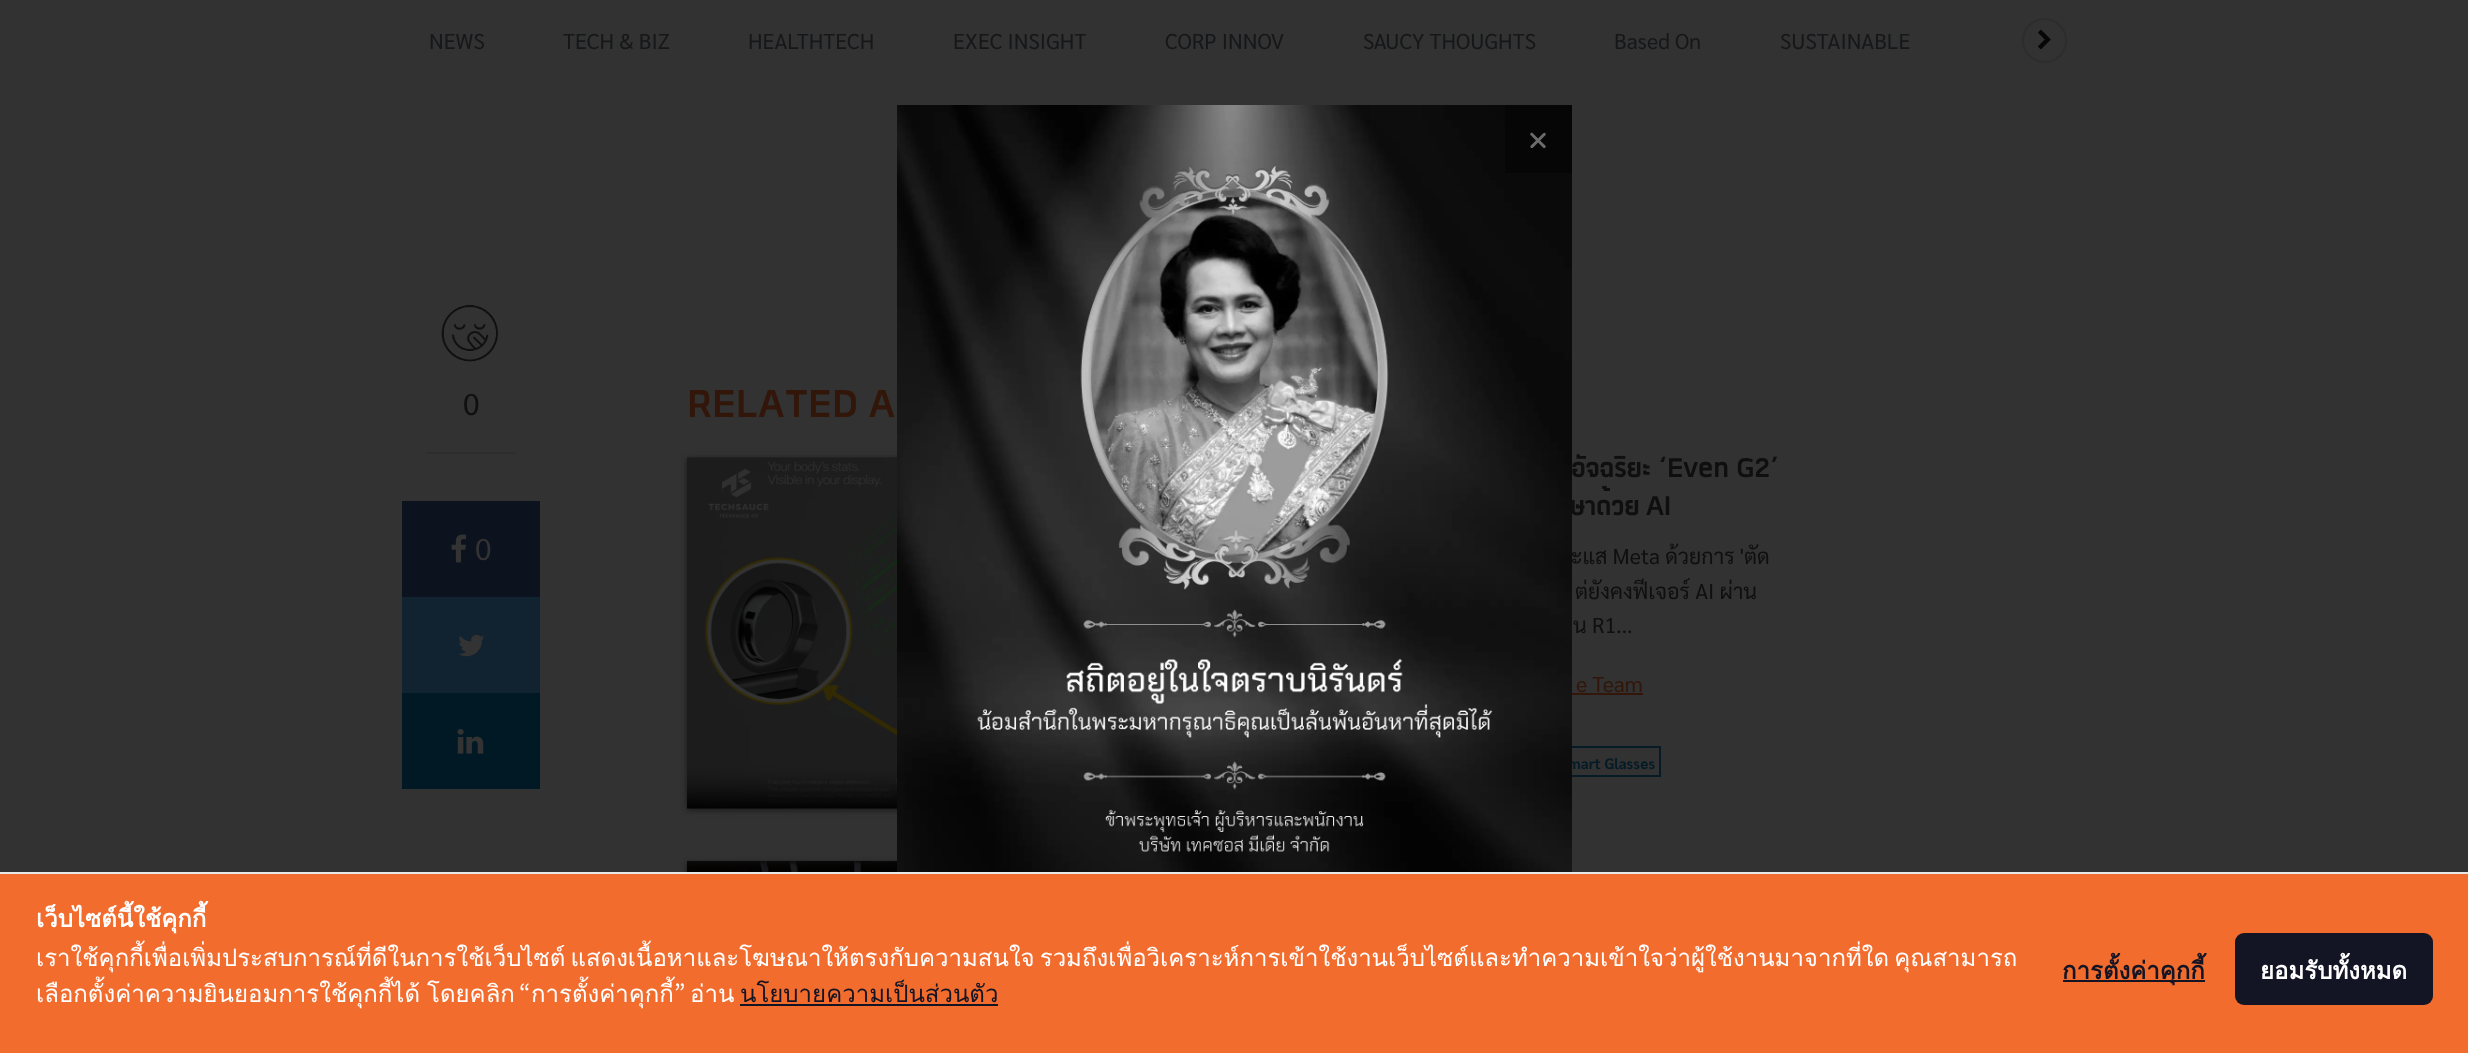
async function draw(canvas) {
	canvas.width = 2468;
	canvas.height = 1053;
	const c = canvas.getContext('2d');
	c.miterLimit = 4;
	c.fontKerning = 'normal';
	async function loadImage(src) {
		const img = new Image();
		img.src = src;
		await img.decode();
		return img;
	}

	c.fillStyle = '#323232';
	c.fillRect(0, 0, 2468, 1053);
	c.font = '21.5px Sarabun';
	c.fillStyle = '#161719';
	for (const [text, x, y] of [
		['NEWS', 429, 49],
		['TECH & BIZ', 563, 49],
		['HEALTHTECH', 748, 49],
		['EXEC INSIGHT', 953, 49],
		['CORP INNOV', 1165, 49],
		['SAUCY THOUGHTS', 1363, 49],
		['Based On', 1614, 49],
		['SUSTAINABLE', 1780, 49],
	]) {
		c.fillText(text, x, y);
	}
	c.beginPath();
	c.arc(2044.5, 40.5, 21.5, 0, 2 * Math.PI);
	c.strokeStyle = '#2c2d2e';
	c.lineWidth = 2;
	c.stroke();
	c.drawImage(await loadImage('img1.png'), 2038, 29, 13, 21);
	c.drawImage(await loadImage('img2.png'), 441, 304, 58, 58);
	c.font = '30px Sarabun';
	c.fillStyle = '#0f0f0f';
	c.fillText('0', 463, 415);
	c.fillStyle = '#2d2d2d';
	c.fillRect(426, 452, 90, 2);
	c.fillStyle = '#0c121e';
	c.fillRect(402, 501, 138, 96);
	c.drawImage(await loadImage('img3.png'), 451, 534, 16, 29);
	c.fillStyle = '#333';
	c.fillText('0', 475, 560);
	c.fillStyle = '#112230';
	c.fillRect(402, 597, 138, 96);
	c.drawImage(await loadImage('img4.png'), 458, 634, 27, 23);
	c.fillStyle = '#001924';
	c.fillRect(402, 693, 138, 96);
	c.drawImage(await loadImage('img5.png'), 457, 729, 27, 25);
	c.font = 'bold 54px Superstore';
	c.fillStyle = '#311609';
	c.fillText('RELATED A', 687, 417);
	c.fillStyle = '#00000080';
	c.filter = 'blur(3px)';
	c.beginPath();
	c.rect(687, 459, 525, 351);
	c.fill();
	c.filter = 'none';
	c.drawImage(await loadImage('img6.png'), 687, 457, 210, 352);
	c.letterSpacing = '-0.5px';
	c.wordSpacing = '1px';
	c.font = 'bold 37.5px Superstore';
	c.fillStyle = '#0f0f0f';
	c.fillText('อัจฉริยะ ‘Even G2’', 1571, 477);
	c.wordSpacing = '0px';
	c.fillText('ษาด้วย AI', 1570, 515);
	c.letterSpacing = '0px';
	c.font = '21.5px Sarabun';
	for (const [text, x, y] of [
		['ะแส Meta ด้วยการ \'ตัด', 1571, 564],
		['ต่ยังคงฟีเจอร์ AI ผ่าน', 1575, 599],
		['น R1...', 1573, 633],
	]) {
		c.fillText(text, x, y);
	}
	c.fillStyle = '#311609';
	c.fillText('e Team', 1576, 692);
	c.fillRect(1572, 693, 71, 2);
	c.strokeStyle = '#051b26';
	c.strokeRect(1555, 747, 105, 29);
	c.font = 'bold 15px Sarabun';
	c.fillStyle = '#051b26';
	c.fillText('mart Glasses', 1568, 769);
	c.fillStyle = '#00000080';
	c.filter = 'blur(3px)';
	c.beginPath();
	c.rect(687, 863, 525, 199);
	c.fill();
	c.filter = 'none';
	c.drawImage(await loadImage('img7.png'), 687, 861, 210, 11);
	c.drawImage(await loadImage('img8.png'), 897, 105, 675, 767);
	c.fillStyle = '#060606';
	c.fillRect(1505, 105, 67, 68);
	c.font = 'bold 32px Nunito';
	c.fillStyle = '#6b6b6b';
	c.fillText('×', 1528, 150);
	c.fillStyle = '#f26c2e';
	c.fillRect(0, 874, 2468, 179);
	c.fillStyle = '#e8e8e8';
	c.fillRect(0, 872, 2468, 2);
	c.font = 'bold 24px Loma';
	c.fillStyle = '#fff';
	c.fillText('เว็บไซต์นี้ใช้คุกกี้', 36, 927);
	c.wordSpacing = '-3px';
	c.font = '24px Loma';
	c.fillText('เราใช้คุกกี้เพื่อเพิ่มประสบการณ์ที่ดีในการใช้เว็บไซต์ แสดงเนื้อหาและโฆษณาให้ตรงกับความสนใจ รวมถึงเพื่อวิเคราะห์การเข้าใช้งานเว็บไซต์และทำความเข้าใจว่าผู้ใช้งานมาจากที่ใด คุณสามารถ', 36, 966);
	c.wordSpacing = '-1px';
	c.fillText('เลือกตั้งค่าความยินยอมการใช้คุกกี้ได้ โดยคลิก', 36, 1002);
	c.wordSpacing = '0px';
	c.font = '24px Noto Sans JP';
	c.fillText('“', 519, 1002);
	c.font = '24px Loma';
	c.fillText('การตั้งค่าคุกกี้', 531, 1002);
	c.font = '24px Noto Sans JP';
	c.fillText('”', 674, 1002);
	c.font = '24px Loma';
	c.fillText('อ่าน', 690, 1002);
	c.fillStyle = '#131424';
	c.fillText('นโยบายความเป็นส่วนตัว', 740, 1002);
	c.fillRect(740, 1004, 258, 2);
	c.fillRect(2063, 980, 142, 2);
	c.font = 'bold 24px Loma';
	c.fillText('การตั้งค่าคุกกี้', 2062, 979);
	c.beginPath();
	c.roundRect(2235, 933, 198, 72, 9);
	c.fill();
	c.fillStyle = '#fff';
	c.fillText('ยอมรับทั้งหมด', 2260, 979);
}

draw(document.querySelector('canvas'));
